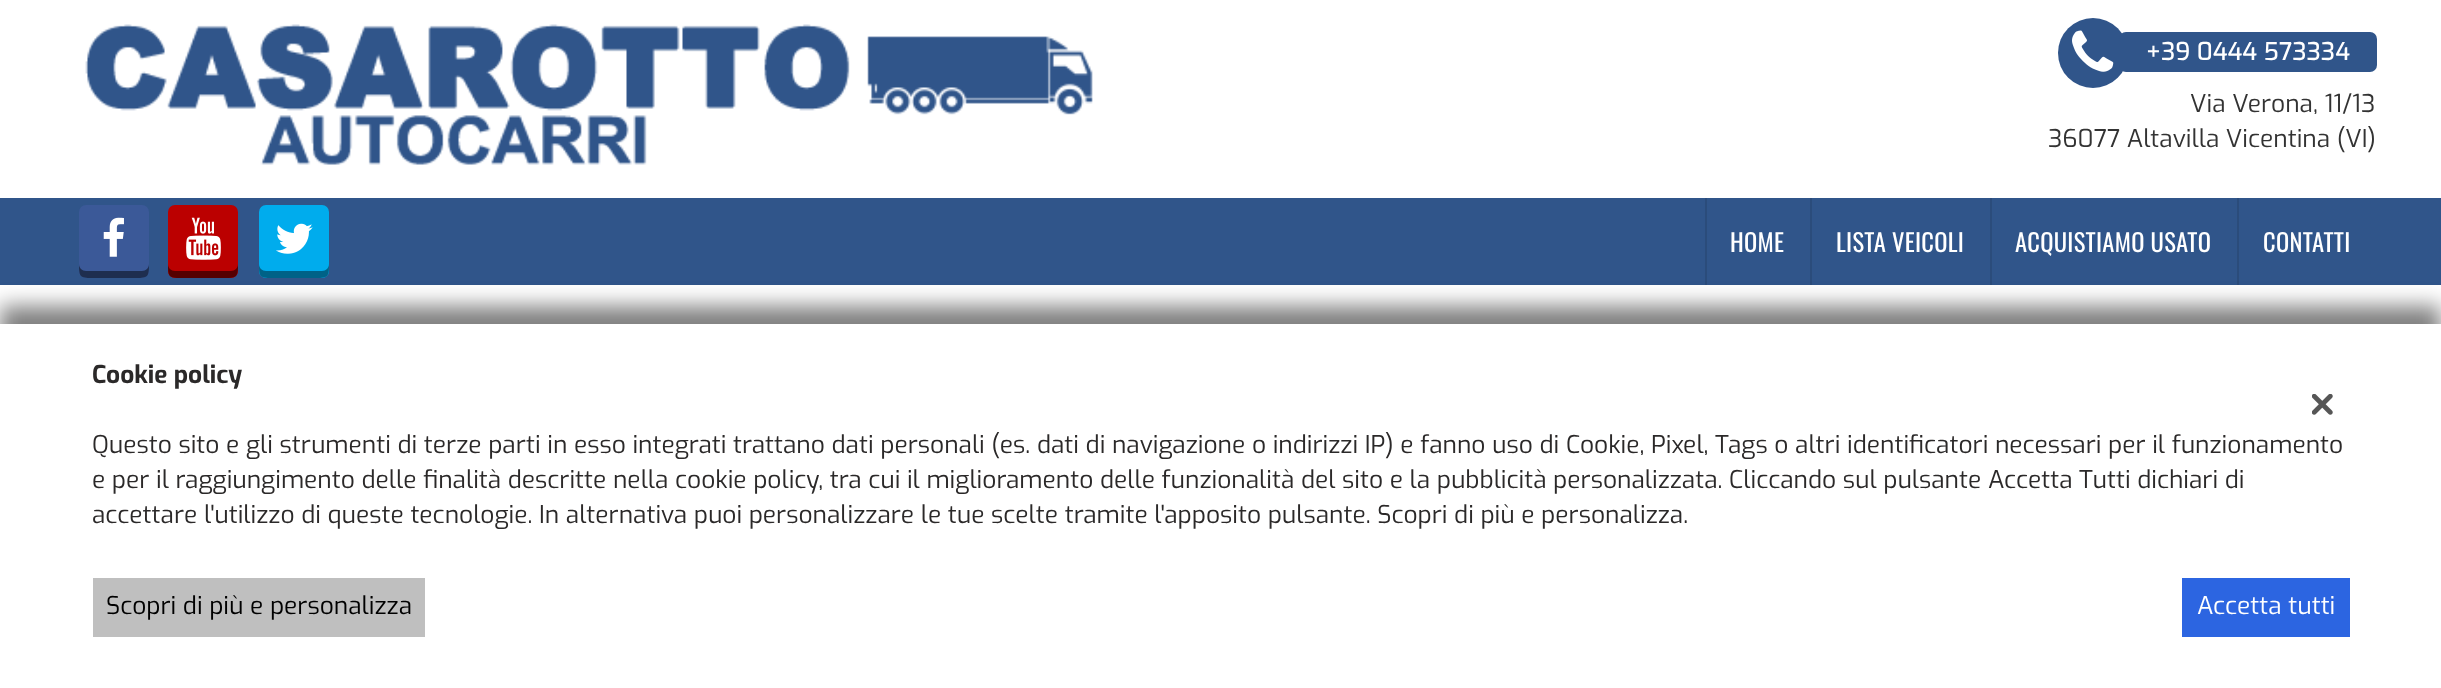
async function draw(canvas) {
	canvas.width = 2441;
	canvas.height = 688;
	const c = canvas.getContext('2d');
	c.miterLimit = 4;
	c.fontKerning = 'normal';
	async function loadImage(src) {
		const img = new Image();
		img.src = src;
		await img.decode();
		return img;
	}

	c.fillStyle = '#fff';
	c.fillRect(0, 0, 2441, 688);
	c.drawImage(await loadImage('img1.png'), 85, 24, 1008, 141);
	c.fillStyle = '#30558a';
	c.beginPath();
	c.arc(2093, 53, 35, 0, 2 * Math.PI);
	c.fill();
	c.drawImage(await loadImage('img2.png'), 2072, 30, 42, 42);
	c.beginPath();
	c.roundRect(2119, 32, 258, 40, 7);
	c.fill();
	c.font = '500 24.5px Exo';
	c.fillStyle = '#fff';
	c.fillText('+39 0444 573334', 2146, 60);
	c.font = '24.5px Exo';
	c.fillStyle = '#333';
	c.fillText('Via Verona, 11/13', 2190, 112);
	c.fillText('36077 Altavilla Vicentina (VI)', 2048, 147);
	c.fillStyle = '#30558a';
	c.fillRect(0, 198, 2441, 87);
	c.fillStyle = '#3b5998';
	c.beginPath();
	c.roundRect(79, 205, 70, 73, 7);
	c.fill();
	c.fillStyle = '#1e2e4f';
	c.beginPath();
	c.moveTo(79, 264);
	c.bezierCurveTo(79, 278, 80, 278, 95, 278);
	c.lineTo(133, 278);
	c.bezierCurveTo(148, 278, 149, 278, 149, 264);
	c.bezierCurveTo(149, 268, 146, 271, 142, 271);
	c.lineTo(86, 271);
	c.bezierCurveTo(82, 271, 79, 268, 79, 264);
	c.closePath();
	c.fill();
	c.drawImage(await loadImage('img3.png'), 103, 217, 21, 40);
	c.fillStyle = '#b00';
	c.beginPath();
	c.roundRect(168, 205, 70, 73, 7);
	c.fill();
	c.fillStyle = '#500';
	c.beginPath();
	c.moveTo(168, 264);
	c.bezierCurveTo(168, 278, 169, 278, 184, 278);
	c.lineTo(222, 278);
	c.bezierCurveTo(237, 278, 238, 278, 238, 264);
	c.bezierCurveTo(238, 268, 235, 271, 231, 271);
	c.lineTo(175, 271);
	c.bezierCurveTo(171, 271, 168, 268, 168, 264);
	c.closePath();
	c.fill();
	c.drawImage(await loadImage('img4.png'), 186, 217, 35, 43);
	c.fillStyle = '#00aced';
	c.beginPath();
	c.roundRect(259, 205, 70, 73, 7);
	c.fill();
	c.fillStyle = '#006287';
	c.beginPath();
	c.moveTo(259, 264);
	c.bezierCurveTo(259, 278, 260, 278, 275, 278);
	c.lineTo(313, 278);
	c.bezierCurveTo(328, 278, 329, 278, 329, 264);
	c.bezierCurveTo(329, 268, 326, 271, 322, 271);
	c.lineTo(266, 271);
	c.bezierCurveTo(262, 271, 259, 268, 259, 264);
	c.closePath();
	c.fill();
	c.drawImage(await loadImage('img5.png'), 276, 223, 37, 31);
	c.fillStyle = '#2b4c7b';
	c.fillRect(1705, 198, 2, 87);
	c.letterSpacing = '0.3px';
	c.font = '24.5px Oswald';
	c.fillStyle = '#fff';
	c.fillText('HOME', 1730, 252);
	c.fillStyle = '#2b4c7b';
	c.fillRect(1810, 198, 2, 87);
	c.fillStyle = '#fff';
	c.fillText('LISTA VEICOLI', 1836, 252);
	c.fillStyle = '#2b4c7b';
	c.fillRect(1990, 198, 2, 87);
	c.fillStyle = '#fff';
	c.fillText('ACQUISTIAMO USATO', 2015, 252);
	c.fillStyle = '#2b4c7b';
	c.fillRect(2237, 198, 2, 87);
	c.fillStyle = '#fff';
	c.fillText('CONTATTI', 2263, 252);
	c.fillStyle = '#00000080';
	c.filter = 'blur(10.5px)';
	c.beginPath();
	c.rect(0, 306, 2441, 366);
	c.fill();
	c.filter = 'none';
	c.fillStyle = '#fff';
	c.fillRect(0, 324, 2441, 364);
	c.letterSpacing = '0px';
	c.font = 'bold 24.5px Exo';
	c.fillStyle = '#2b2929';
	c.fillText('Cookie policy', 92, 383);
	c.font = '24.5px Exo';
	for (const [text, x, y] of [
		['Questo sito e gli strumenti di terze parti in esso integrati trattano dati personali (es. dati di navigazione o indirizzi IP) e fanno uso di Cookie, Pixel, Tags o altri identificatori necessari per il funzionamento', 92, 453],
		['e per il raggiungimento delle finalità descritte nella cookie policy, tra cui il miglioramento delle funzionalità del sito e la pubblicità personalizzata. Cliccando sul pulsante Accetta Tutti dichiari di', 92, 488],
		['accettare l\'utilizzo di queste tecnologie. In alternativa puoi personalizzare le tue scelte tramite l\'apposito pulsante. Scopri di più e personalizza.', 92, 523],
	]) {
		c.fillText(text, x, y);
	}
	c.fillStyle = '#bfbfbf';
	c.fillRect(93, 578, 332, 59);
	c.fillStyle = '#000';
	c.fillText('Scopri di più e personalizza', 106, 614);
	c.fillStyle = '#2c65e1';
	c.fillRect(2182, 578, 168, 59);
	c.fillStyle = '#fff';
	c.fillText('Accetta tutti', 2197, 614);
	c.drawImage(await loadImage('img6.png'), 2312, 394, 21, 21);
}

draw(document.querySelector('canvas'));
